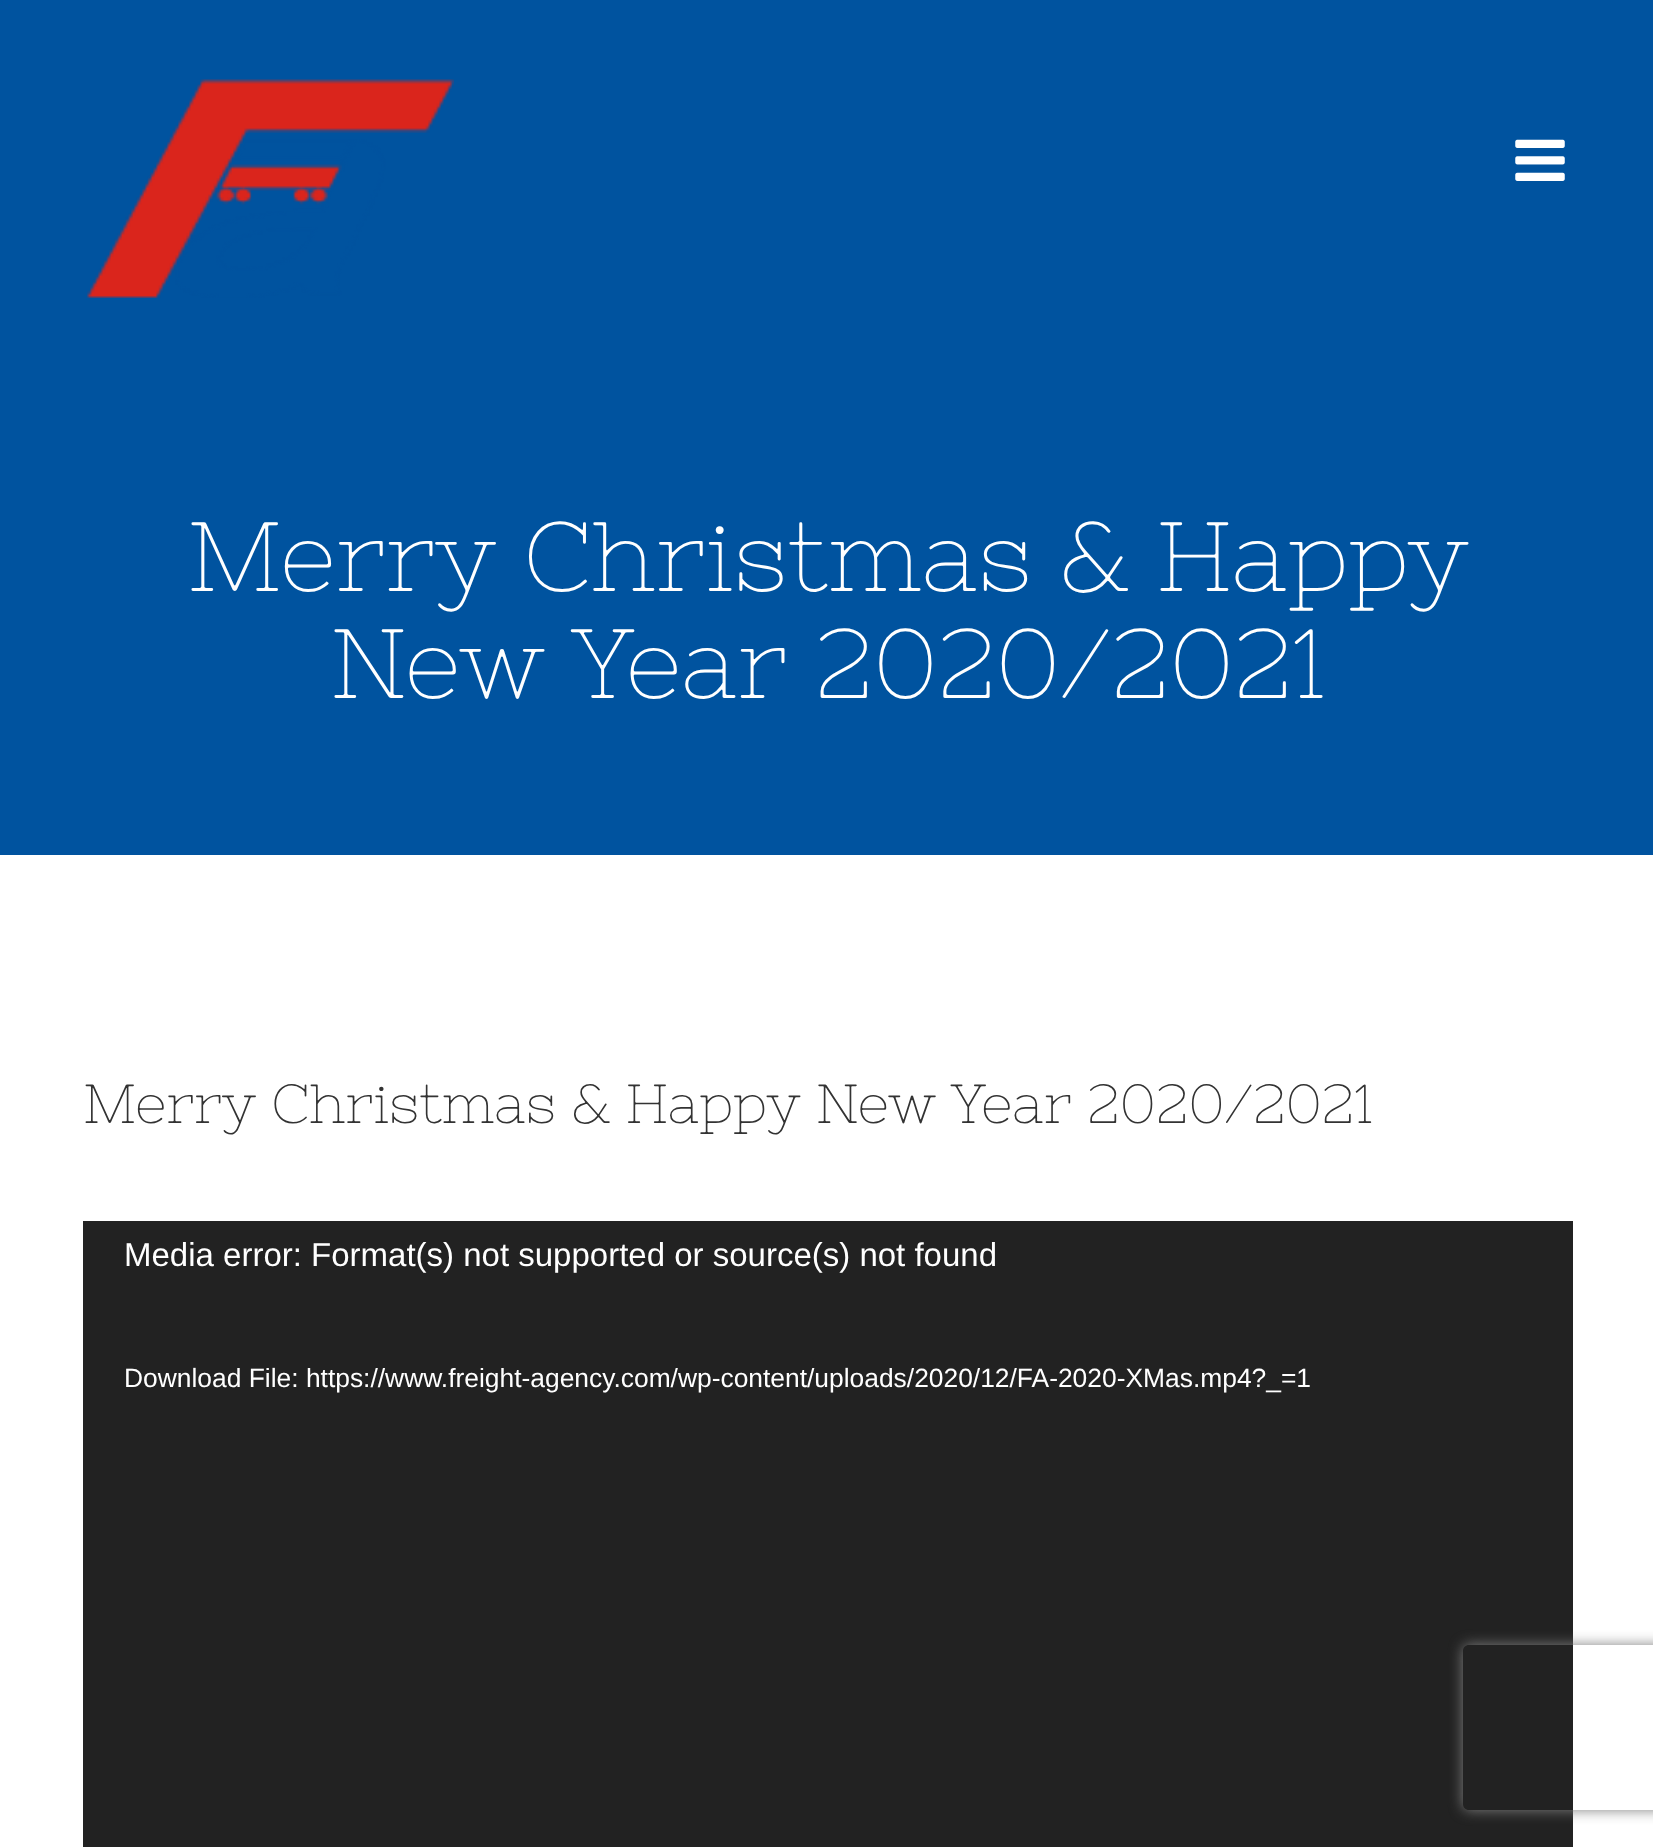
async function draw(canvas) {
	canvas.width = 1653;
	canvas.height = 1847;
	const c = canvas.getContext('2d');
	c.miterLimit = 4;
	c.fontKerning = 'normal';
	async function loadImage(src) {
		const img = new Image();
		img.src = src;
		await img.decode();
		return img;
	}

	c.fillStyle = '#fff';
	c.fillRect(0, 0, 1653, 1847);
	c.fillStyle = '#00539f';
	c.fillRect(0, 0, 1653, 855);
	c.drawImage(await loadImage('img1.png'), 87, 79, 367, 219);
	c.drawImage(await loadImage('img2.png'), 1515, 139, 50, 42);
	c.font = '98.25px Nixie One';
	c.fillStyle = '#fff';
	c.fillText('Merry Christmas & Happy', 187, 591);
	c.fillText('New Year 2020/2021', 330, 698);
	c.font = '55px Nixie One';
	c.fillStyle = '#333';
	c.fillText('Merry Christmas & Happy New Year 2020/2021', 83, 1123);
	c.fillStyle = '#222';
	c.fillRect(83, 1221, 1490, 626);
	c.font = '33px Liberation Sans';
	c.fillStyle = '#fff';
	c.fillText('Media error: Format(s) not supported or source(s) not found', 124, 1266);
	c.font = '26.4px Liberation Sans';
	c.fillText('Download File: https://www.freight-agency.com/wp-content/uploads/2020/12/FA-2020-XMas.mp4?_=1', 124, 1387);
	c.save();
	c.beginPath();
	c.moveTo(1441, 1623);
	c.lineTo(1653, 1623);
	c.lineTo(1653, 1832);
	c.lineTo(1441, 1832);
	c.closePath();
	c.moveTo(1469, 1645);
	c.lineTo(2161, 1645);
	c.bezierCurveTo(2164.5, 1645, 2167, 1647.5, 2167, 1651);
	c.lineTo(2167, 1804);
	c.bezierCurveTo(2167, 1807.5, 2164.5, 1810, 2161, 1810);
	c.lineTo(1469, 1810);
	c.bezierCurveTo(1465.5, 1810, 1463, 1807.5, 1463, 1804);
	c.lineTo(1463, 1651);
	c.bezierCurveTo(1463, 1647.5, 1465.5, 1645, 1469, 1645);
	c.closePath();
	c.clip('evenodd');
	c.fillStyle = '#808080';
	c.filter = 'blur(7px)';
	c.beginPath();
	c.roundRect(1463, 1645, 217, 165, 6);
	c.fill();
	c.filter = 'none';
	c.restore();
}

draw(document.querySelector('canvas'));
